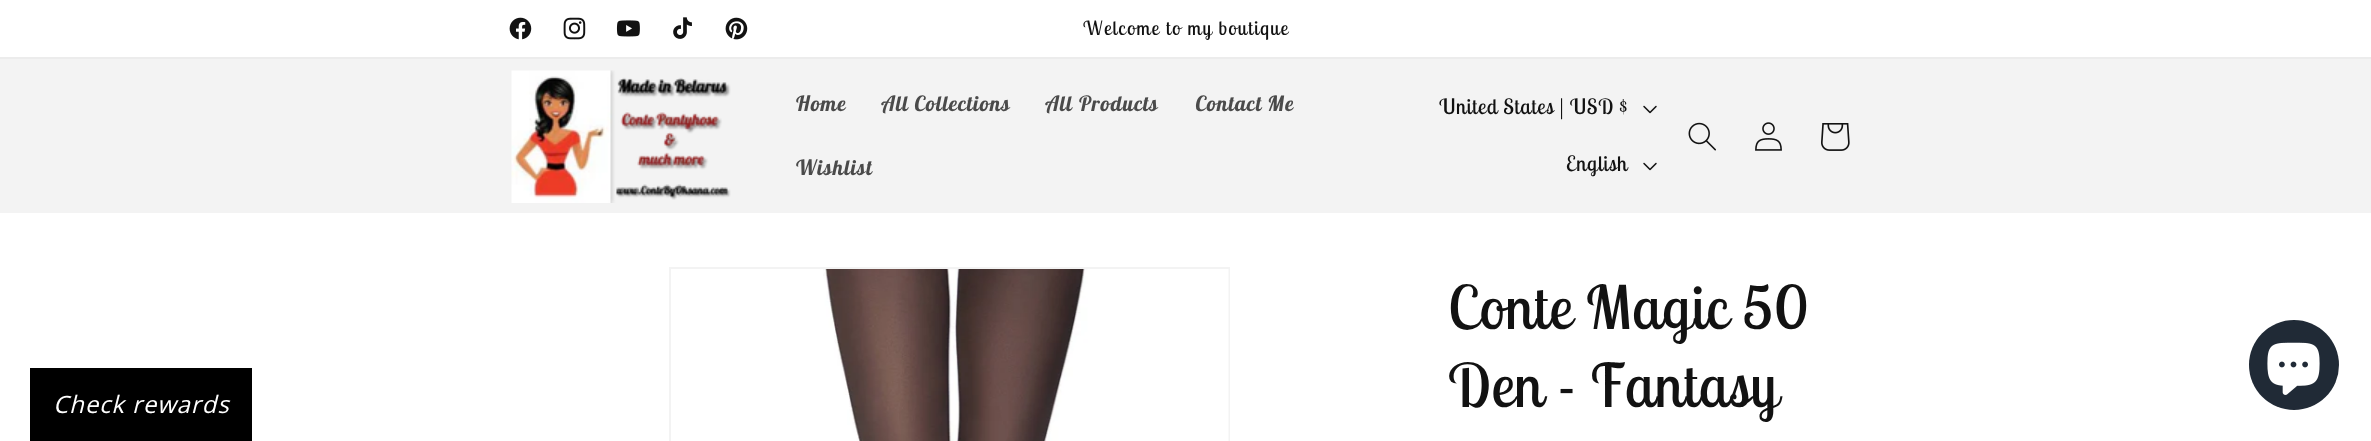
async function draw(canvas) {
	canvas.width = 2371;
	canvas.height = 441;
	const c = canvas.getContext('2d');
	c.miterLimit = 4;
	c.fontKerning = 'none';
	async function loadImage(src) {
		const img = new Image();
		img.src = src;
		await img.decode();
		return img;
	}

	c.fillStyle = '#fff';
	c.fillRect(0, 0, 2371, 441);
	c.fillStyle = '#ececec';
	c.fillRect(0, 57, 2371, 2);
	c.drawImage(await loadImage('img1.png'), 509, 17, 23, 23);
	c.drawImage(await loadImage('img2.png'), 563, 17, 23, 23);
	c.drawImage(await loadImage('img3.png'), 616, 20, 24, 17);
	c.drawImage(await loadImage('img4.png'), 673, 17, 19, 22);
	c.drawImage(await loadImage('img5.png'), 725, 17, 23, 23);
	c.letterSpacing = '1.5px';
	c.font = '19.5px Lobster Two';
	c.fillStyle = '#121212';
	c.fillText('Welcome to my boutique', 1083, 35);
	c.fillStyle = '#f3f3f3';
	c.fillRect(0, 59, 2371, 154);
	c.drawImage(await loadImage('img6.png'), 511, 70, 220, 133);
	c.letterSpacing = '0.9px';
	c.font = 'italic bold 21px Lobster Two';
	c.fillStyle = '#4a4a4a';
	for (const [text, x, y] of [
		['Home', 795, 111],
		['All Collections', 882, 111],
		['All Products', 1046, 111],
		['Contact Me', 1195, 111],
		['Wishlist', 795, 175],
	]) {
		c.fillText(text, x, y);
	}
	c.font = '21px Lobster Two';
	c.fillStyle = '#121212';
	c.fillText('United States | USD $', 1439, 114);
	c.drawImage(await loadImage('img7.png'), 1643, 105, 14, 9);
	c.fillText('English', 1566, 171);
	c.drawImage(await loadImage('img7.png'), 1643, 162, 14, 9);
	c.drawImage(await loadImage('img8.png'), 1688, 122, 28, 29);
	c.drawImage(await loadImage('img9.png'), 1755, 122, 27, 29);
	c.drawImage(await loadImage('img10.png'), 1821, 123, 29, 28);
	c.fillStyle = '#000';
	c.fillRect(30, 368, 222, 73);
	c.font = 'italic 24px Open Sans';
	c.fillStyle = '#fff';
	c.fillText('Check rewards', 53, 413);
	c.strokeStyle = '#f3f3f3';
	c.lineWidth = 2;
	c.strokeRect(670, 268, 559, 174);
	c.drawImage(await loadImage('img11.png'), 823, 269, 406, 172);
	c.font = '60px Lobster Two';
	c.fillStyle = '#121212';
	c.fillText('Conte Magic 50', 1448, 329);
	c.fillText('Den - Fantasy', 1448, 407);
	c.fillStyle = '#202a36';
	c.beginPath();
	c.arc(2294, 365, 45, 0, 2 * Math.PI);
	c.fill();
	c.drawImage(await loadImage('img12.png'), 2267, 342, 53, 53);
}

draw(document.querySelector('canvas'));
